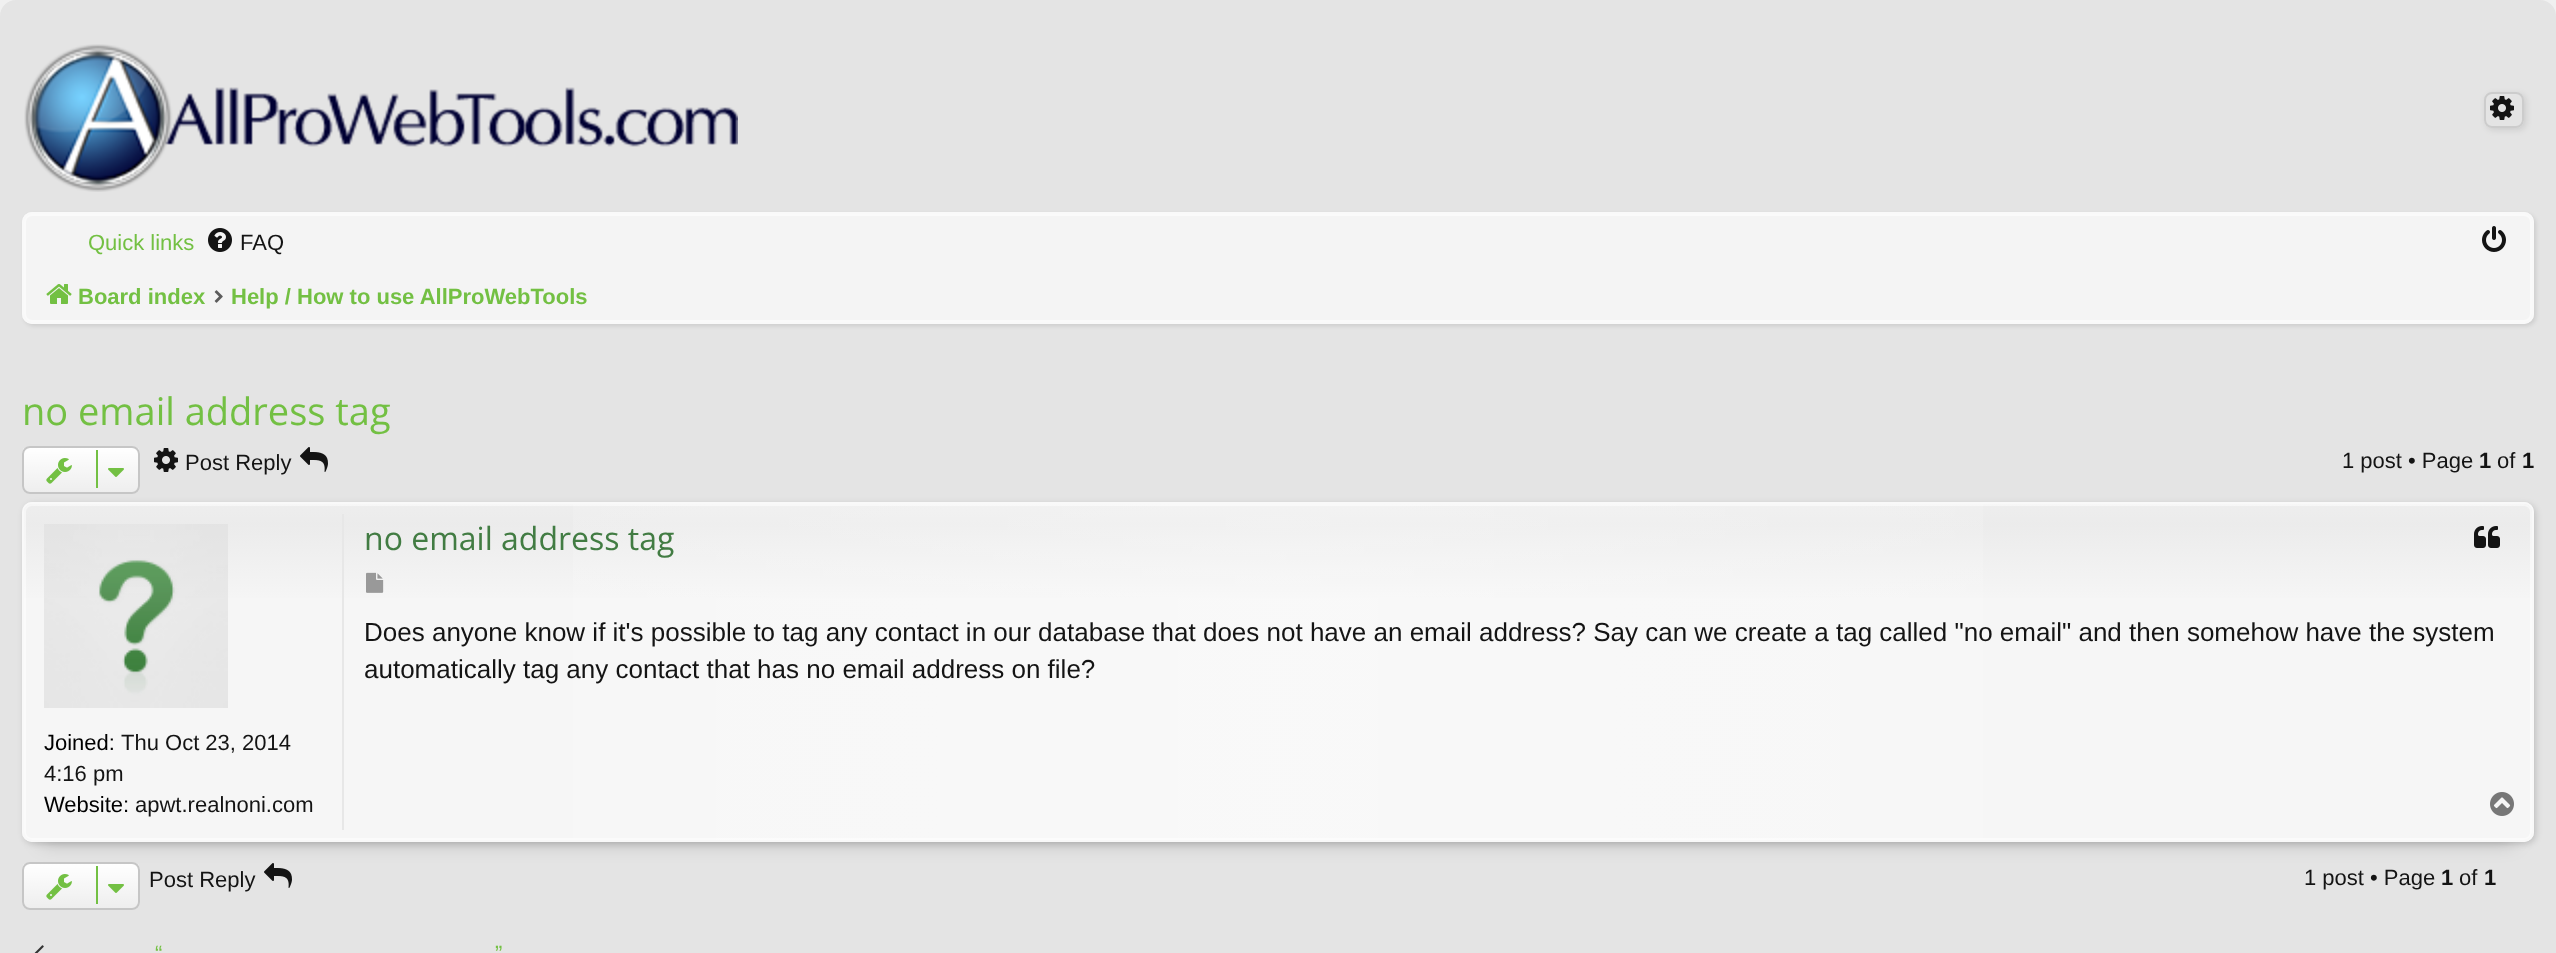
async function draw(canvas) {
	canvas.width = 2556;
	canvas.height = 953;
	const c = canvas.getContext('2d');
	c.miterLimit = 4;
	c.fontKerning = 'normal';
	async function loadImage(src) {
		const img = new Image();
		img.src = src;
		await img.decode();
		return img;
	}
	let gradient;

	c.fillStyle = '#f0f0f0';
	c.fillRect(0, 0, 2556, 953);
	c.fillStyle = '#e4e4e4';
	c.beginPath();
	c.roundRect(1, 1, 2554, 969, 15);
	c.fill();
	c.strokeStyle = '#e4e4e4';
	c.lineWidth = 2;
	c.stroke();
	c.drawImage(await loadImage('img1.png'), 24, 44, 714, 148);
	c.save();
	c.beginPath();
	c.moveTo(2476, 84);
	c.lineTo(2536, 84);
	c.lineTo(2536, 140);
	c.lineTo(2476, 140);
	c.closePath();
	c.moveTo(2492, 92);
	c.lineTo(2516, 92);
	c.bezierCurveTo(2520.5, 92, 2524, 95.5, 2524, 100);
	c.lineTo(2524, 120);
	c.bezierCurveTo(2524, 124.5, 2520.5, 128, 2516, 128);
	c.lineTo(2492, 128);
	c.bezierCurveTo(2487.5, 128, 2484, 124.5, 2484, 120);
	c.lineTo(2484, 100);
	c.bezierCurveTo(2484, 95.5, 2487.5, 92, 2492, 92);
	c.closePath();
	c.clip('evenodd');
	c.fillStyle = '#0000001a';
	c.filter = 'blur(3px)';
	c.beginPath();
	c.roundRect(2486, 94, 40, 36, 8);
	c.fill();
	c.filter = 'none';
	c.restore();
	c.beginPath();
	c.roundRect(2485, 93, 38, 34, 7);
	c.strokeStyle = '#ccc';
	c.stroke();
	c.drawImage(await loadImage('img2.png'), 2490, 96, 24, 24);
	c.fillStyle = '#0000001a';
	c.filter = 'blur(2px)';
	c.beginPath();
	c.roundRect(24, 214, 2512, 112, 10);
	c.fill();
	c.filter = 'none';
	c.fillStyle = '#f4f4f4';
	c.beginPath();
	c.roundRect(22, 212, 2512, 112, 10);
	c.fill();
	c.beginPath();
	c.roundRect(25, 215, 2506, 106, 7);
	c.strokeStyle = '#fafafa';
	c.stroke();
	c.beginPath();
	c.roundRect(23, 213, 2510, 110, 9);
	c.strokeStyle = '#f9f9f9';
	c.stroke();
	c.font = '22px Liberation Sans';
	c.fillStyle = '#73c043';
	c.fillText('Quick links', 88, 250);
	c.drawImage(await loadImage('img3.png'), 208, 228, 24, 24);
	c.fillStyle = '#141414';
	c.fillText('FAQ', 240, 250);
	c.drawImage(await loadImage('img4.png'), 2482, 226, 24, 26);
	c.drawImage(await loadImage('img5.png'), 46, 284, 26, 20);
	c.font = 'bold 22px Liberation Sans';
	c.fillStyle = '#73c043';
	c.fillText('Board index', 78, 304);
	c.drawImage(await loadImage('img6.png'), 214, 290, 9, 13);
	c.fillText('Help / How to use AllProWebTools', 231, 304);
	c.font = '38px Open Sans';
	c.fillText('no email address tag', 22, 425);
	c.fillStyle = '#eee';
	c.beginPath();
	c.roundRect(22, 446, 118, 48, 8);
	c.fill();
	c.save();
	c.beginPath();
	c.roundRect(22, 446, 118, 48, 8);
	c.clip();
	gradient = c.createLinearGradient(81, 448, 81, 492);
	gradient.addColorStop(0, '#fff');
	gradient.addColorStop(1, '#ffffff00');
	c.fillStyle = gradient;
	c.fillRect(22, 448, 118, 43);
	c.restore();
	c.beginPath();
	c.roundRect(23, 447, 116, 46, 7);
	c.strokeStyle = '#c6c6c6';
	c.stroke();
	c.drawImage(await loadImage('img7.png'), 46, 458, 26, 26);
	c.fillStyle = '#73c043';
	c.fillRect(96, 450, 2, 38);
	c.drawImage(await loadImage('img8.png'), 108, 468, 16, 9);
	c.drawImage(await loadImage('img2.png'), 154, 448, 24, 24);
	c.font = '22px Liberation Sans';
	c.fillStyle = '#141414';
	c.fillText('Post Reply', 185, 470);
	c.drawImage(await loadImage('img9.png'), 300, 447, 28, 25);
	c.fillText('1 post • Page', 2342, 468);
	c.font = 'bold 22px Liberation Sans';
	c.fillText('1', 2479, 468);
	c.font = '22px Liberation Sans';
	c.fillText('of', 2497, 468);
	c.font = 'bold 22px Liberation Sans';
	c.fillText('1', 2522, 468);
	c.drawImage(await loadImage('img9.png'), 264, 863, 28, 25);
	c.fillStyle = '#00000033';
	c.filter = 'blur(10px)';
	c.beginPath();
	c.rect(42, 542, 2472, 300);
	c.fill();
	c.filter = 'none';
	c.fillStyle = '#00000026';
	c.filter = 'blur(3px)';
	c.beginPath();
	c.roundRect(24, 504, 2512, 340, 10);
	c.fill();
	c.filter = 'none';
	c.fillStyle = '#f6f6f6';
	c.beginPath();
	c.roundRect(22, 502, 2512, 340, 10);
	c.fill();
	c.save();
	c.beginPath();
	c.roundRect(22, 502, 2512, 340, 10);
	c.clip();
	gradient = c.createLinearGradient(1278, 504, 1278, 840);
	gradient.addColorStop(0, '#cccccc33');
	gradient.addColorStop(0.06, '#cccccc40');
	gradient.addColorStop(0.3, '#cccccc00');
	c.fillStyle = gradient;
	c.fillRect(22, 504, 2512, 94);
	c.restore();
	gradient = c.createLinearGradient(24, 672, 2532, 672);
	gradient.addColorStop(0, '#ffffff00');
	gradient.addColorStop(0.5, '#ffffff4d');
	gradient.addColorStop(1, '#ffffff00');
	c.fillStyle = gradient;
	c.fillRect(573, 504, 1410, 336);
	c.beginPath();
	c.roundRect(25, 505, 2506, 334, 7);
	c.strokeStyle = '#ffffff80';
	c.stroke();
	c.beginPath();
	c.roundRect(23, 503, 2510, 338, 9);
	c.strokeStyle = '#f9f9f9';
	c.stroke();
	c.font = '32px Open Sans';
	c.fillStyle = '#427c43';
	c.fillText('no email address tag', 364, 550);
	c.drawImage(await loadImage('img10.png'), 2474, 526, 26, 22);
	c.drawImage(await loadImage('img11.png'), 366, 572, 18, 21);
	c.font = '26px Liberation Sans';
	c.fillStyle = '#141414';
	c.fillText('Does anyone know if it\'s possible to tag any contact in our database that does not have an email address? Say can we create a tag called "no email" and then somehow have the system', 364, 641);
	c.fillText('automatically tag any contact that has no email address on file?', 364, 678);
	c.fillStyle = '#e7e7e7';
	c.fillRect(342, 514, 2, 316);
	c.drawImage(await loadImage('img12.png'), 44, 524, 184, 184);
	c.font = '22px Liberation Sans';
	c.fillStyle = '#000';
	c.fillText('Joined:', 44, 750);
	c.fillStyle = '#141414';
	c.fillText('Thu Oct 23, 2014', 121, 750);
	c.fillText('4:16 pm', 44, 781);
	c.fillStyle = '#000';
	c.fillText('Website:', 44, 812);
	c.fillStyle = '#141414';
	c.fillText('apwt.realnoni.com', 135, 812);
	c.drawImage(await loadImage('img13.png'), 2490, 792, 24, 24);
	c.fillStyle = '#eee';
	c.beginPath();
	c.roundRect(22, 862, 118, 48, 8);
	c.fill();
	c.save();
	c.beginPath();
	c.roundRect(22, 862, 118, 48, 8);
	c.clip();
	gradient = c.createLinearGradient(81, 864, 81, 908);
	gradient.addColorStop(0, '#fff');
	gradient.addColorStop(1, '#ffffff00');
	c.fillStyle = gradient;
	c.fillRect(22, 864, 118, 43);
	c.restore();
	c.beginPath();
	c.roundRect(23, 863, 116, 46, 7);
	c.strokeStyle = '#c6c6c6';
	c.stroke();
	c.drawImage(await loadImage('img7.png'), 46, 874, 26, 26);
	c.fillStyle = '#73c043';
	c.fillRect(96, 866, 2, 38);
	c.drawImage(await loadImage('img8.png'), 108, 884, 16, 9);
	c.fillStyle = '#141414';
	c.fillText('Post Reply', 149, 887);
	c.fillText('1 post • Page', 2304, 885);
	c.font = 'bold 22px Liberation Sans';
	c.fillText('1', 2441, 885);
	c.font = '22px Liberation Sans';
	c.fillText('of', 2459, 885);
	c.font = 'bold 22px Liberation Sans';
	c.fillText('1', 2484, 885);
	c.drawImage(await loadImage('img14.png'), 34, 945, 10, 8);
	c.font = '22px Liberation Sans';
	c.fillStyle = '#73c043';
	c.fillText('“', 155, 961);
	c.fillText('”', 495, 961);
}

draw(document.querySelector('canvas'));
